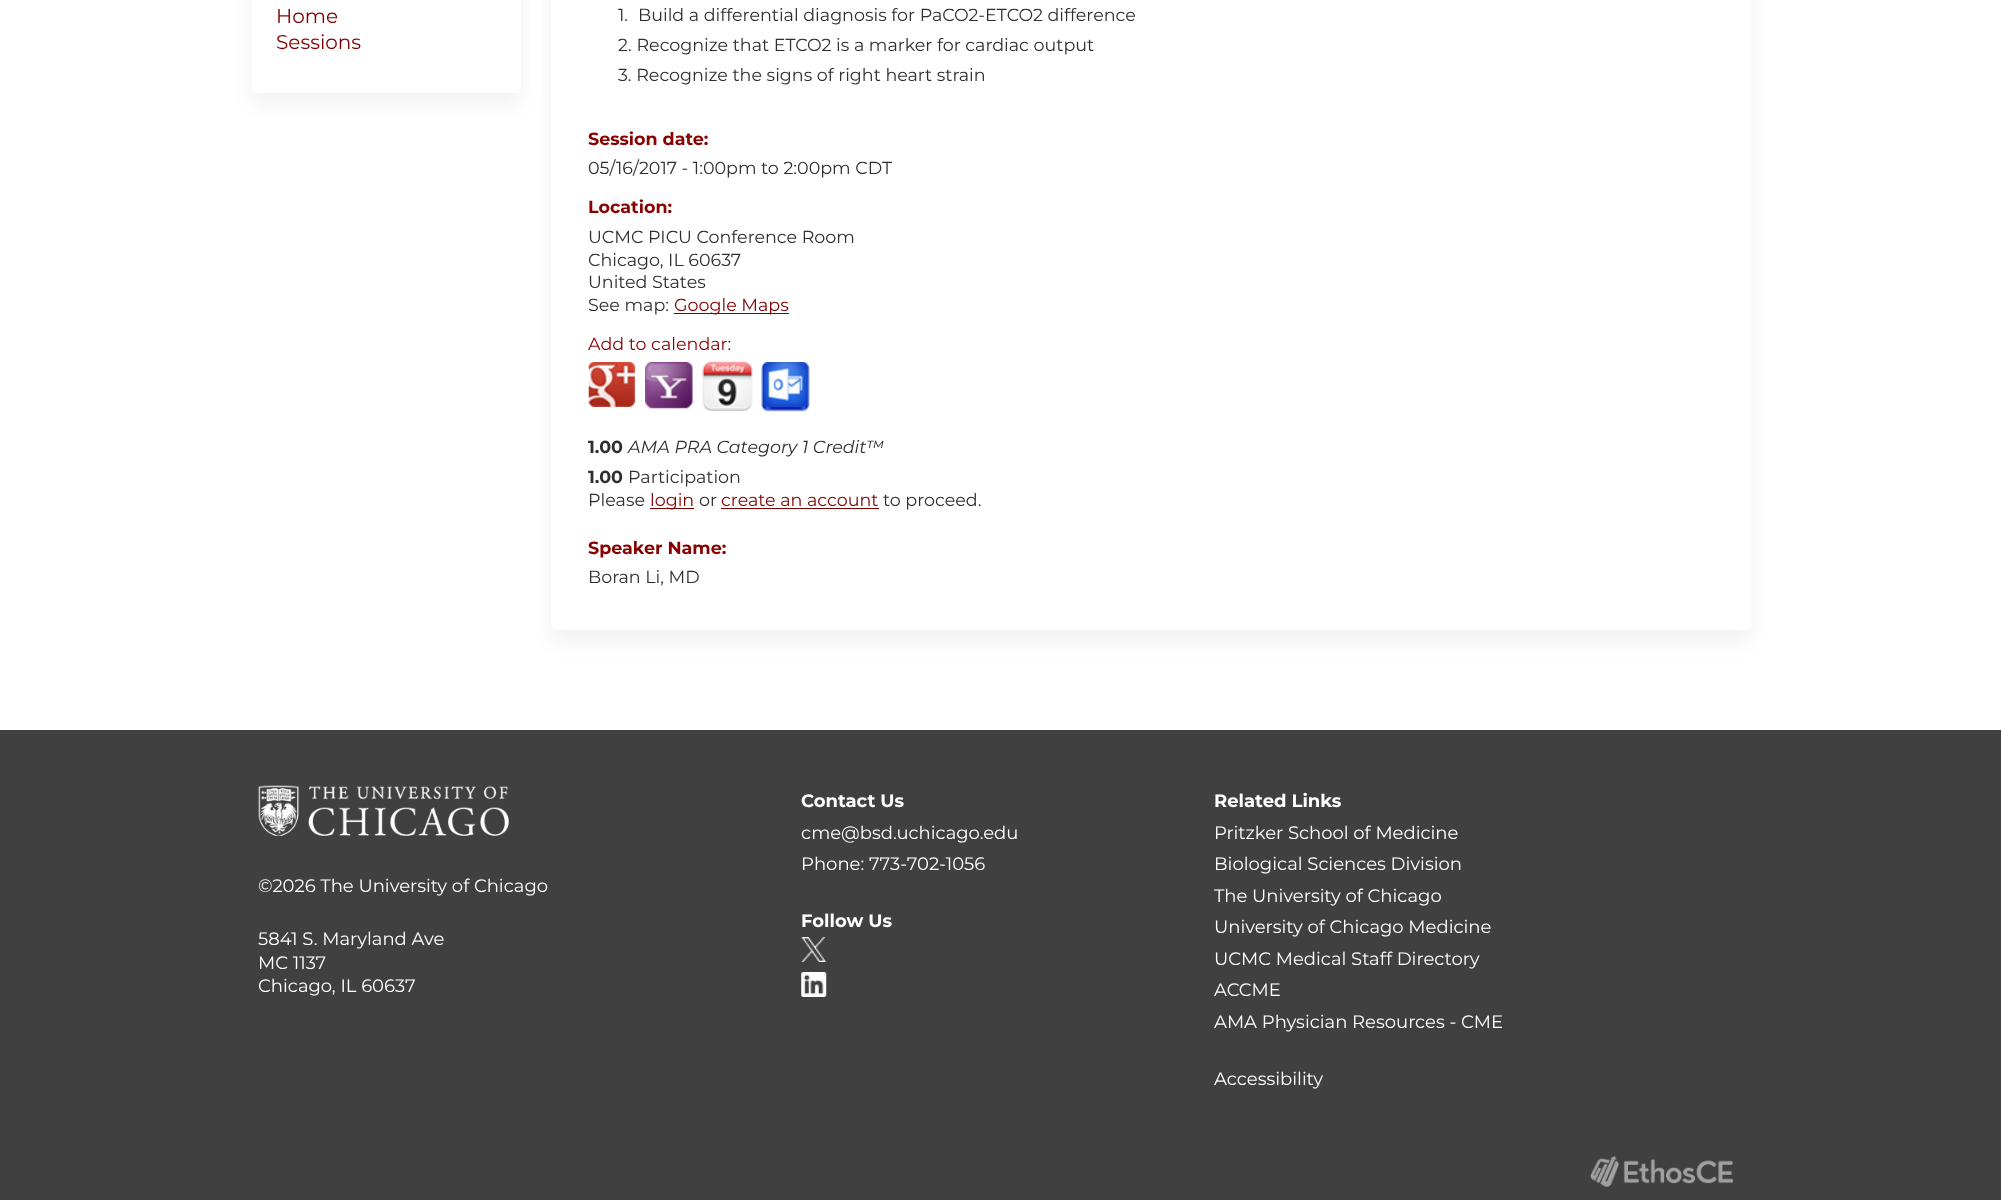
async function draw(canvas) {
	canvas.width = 2001;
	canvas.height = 1200;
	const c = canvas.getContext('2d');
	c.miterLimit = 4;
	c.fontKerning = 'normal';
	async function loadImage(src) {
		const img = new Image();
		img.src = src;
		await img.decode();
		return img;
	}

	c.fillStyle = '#fff';
	c.fillRect(0, 0, 2001, 1200);
	c.fillStyle = '#0000000d';
	c.filter = 'blur(9.5px)';
	c.beginPath();
	c.roundRect(251, -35, 270, 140, 6);
	c.fill();
	c.filter = 'none';
	c.fillStyle = '#fff';
	c.beginPath();
	c.roundRect(251, -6, 270, 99, 6);
	c.fill();
	c.font = '20px Montserrat';
	c.fillStyle = '#800000';
	c.fillText('Home', 276, 23);
	c.fillText('Sessions', 276, 49);
	c.fillStyle = '#0000000d';
	c.filter = 'blur(9.5px)';
	c.beginPath();
	c.roundRect(551, -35, 1200, 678, 6);
	c.fill();
	c.filter = 'none';
	c.fillStyle = '#fff';
	c.beginPath();
	c.roundRect(551, -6, 1200, 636, 6);
	c.fill();
	c.font = '17.5px Montserrat';
	c.fillStyle = '#2f2f2f';
	for (const [text, x, y] of [
		['1.', 618, 21],
		['Build a differential diagnosis for PaCO2-ETCO2 difference', 638, 21],
		['2. Recognize that ETCO2 is a marker for cardiac output', 618, 51],
		['3. Recognize the signs of right heart strain', 618, 81],
	]) {
		c.fillText(text, x, y);
	}
	c.font = 'bold 17.5px Montserrat';
	c.fillStyle = '#800';
	c.fillText('Session date:', 588, 145);
	c.font = '17.5px Montserrat';
	c.fillStyle = '#2f2f2f';
	c.fillText('05/16/2017 - 1:00pm to 2:00pm CDT', 588, 174);
	c.font = 'bold 17.5px Montserrat';
	c.fillStyle = '#800';
	c.fillText('Location:', 588, 213);
	c.font = '17.5px Montserrat';
	c.fillStyle = '#2f2f2f';
	for (const [text, x, y] of [
		['UCMC PICU Conference Room', 588, 243],
		['Chicago, IL 60637', 588, 266],
		['United States', 588, 288],
		['See map:', 588, 311],
	]) {
		c.fillText(text, x, y);
	}
	c.fillStyle = '#800000';
	c.fillRect(674, 313, 115, 1);
	c.fillText('Google Maps', 674, 311);
	c.fillStyle = '#800';
	c.fillText('Add to calendar:', 588, 350);
	c.drawImage(await loadImage('img1.png'), 588, 362, 47, 45);
	c.drawImage(await loadImage('img2.png'), 645, 362, 48, 47);
	c.drawImage(await loadImage('img3.png'), 702, 360, 51, 51);
	c.drawImage(await loadImage('img4.png'), 761, 362, 49, 50);
	c.font = 'bold 17.5px Montserrat';
	c.fillStyle = '#2f2f2f';
	c.fillText('1.00', 588, 453);
	c.font = 'italic 17.5px Montserrat';
	c.fillText('AMA PRA Category 1 Credit™', 628, 453);
	c.font = 'bold 17.5px Montserrat';
	c.fillText('1.00', 588, 483);
	c.font = '17.5px Montserrat';
	c.fillText('Participation', 628, 483);
	c.fillText('Please', 588, 506);
	c.fillStyle = '#800000';
	c.fillRect(650, 508, 44, 1);
	c.fillText('login', 650, 506);
	c.fillStyle = '#2f2f2f';
	c.fillText('or', 699, 506);
	c.fillStyle = '#800000';
	c.fillText('create an account', 721, 506);
	c.fillRect(721, 508, 158, 1);
	c.fillStyle = '#2f2f2f';
	c.fillText('to proceed.', 883, 506);
	c.font = 'bold 17.5px Montserrat';
	c.fillStyle = '#800';
	c.fillText('Speaker Name:', 588, 554);
	c.font = '17.5px Montserrat';
	c.fillStyle = '#2f2f2f';
	c.fillText('Boran Li, MD', 588, 583);
	c.fillStyle = '#404040';
	c.fillRect(0, 730, 2001, 470);
	c.drawImage(await loadImage('img5.png'), 258, 785, 251, 51);
	c.font = '18px Montserrat';
	c.fillStyle = '#fff';
	for (const [text, x, y] of [
		['©2026 The University of Chicago', 258, 892],
		['5841 S. Maryland Ave', 258, 945],
		['MC 1137', 258, 969],
		['Chicago, IL 60637', 258, 992],
	]) {
		c.fillText(text, x, y);
	}
	c.font = 'bold 18px Montserrat';
	c.fillText('Contact Us', 801, 807);
	c.font = '18px Montserrat';
	c.fillText('cme@bsd.uchicago.edu', 801, 839);
	c.fillText('Phone: 773-702-1056', 801, 870);
	c.font = 'bold 18px Montserrat';
	c.fillText('Follow Us', 801, 927);
	c.drawImage(await loadImage('img6.png'), 801, 937, 26, 25);
	c.drawImage(await loadImage('img7.png'), 801, 972, 26, 25);
	c.fillText('Related Links', 1214, 807);
	c.font = '18px Montserrat';
	for (const [text, x, y] of [
		['Pritzker School of Medicine', 1214, 839],
		['Biological Sciences Division', 1214, 870],
		['The University of Chicago', 1214, 902],
		['University of Chicago Medicine', 1214, 933],
		['UCMC Medical Staff Directory', 1214, 965],
		['ACCME', 1214, 996],
		['AMA Physician Resources - CME', 1214, 1028],
		['Accessibility', 1214, 1085],
	]) {
		c.fillText(text, x, y);
	}
	c.drawImage(await loadImage('img8.png'), 1590, 1156, 144, 31);
}

draw(document.querySelector('canvas'));
